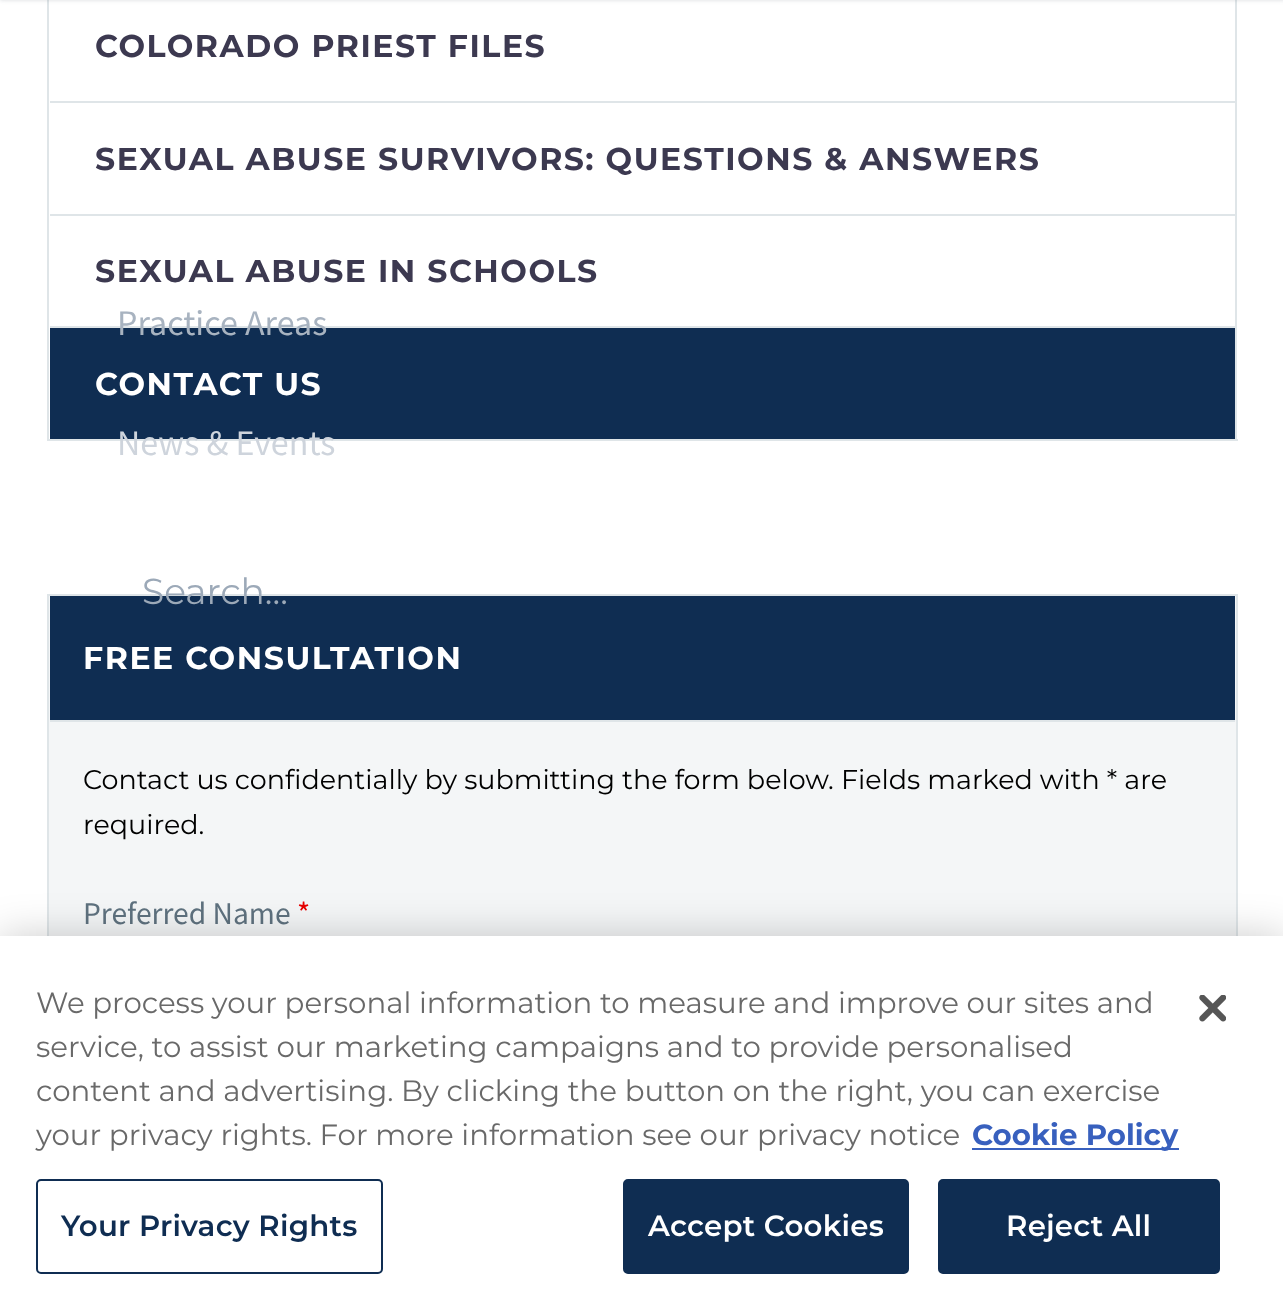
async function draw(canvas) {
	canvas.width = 1283;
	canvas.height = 1304;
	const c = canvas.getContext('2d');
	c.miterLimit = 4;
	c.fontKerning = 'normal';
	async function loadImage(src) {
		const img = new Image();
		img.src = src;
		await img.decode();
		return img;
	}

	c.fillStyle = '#fff';
	c.fillRect(0, 0, 1283, 1304);
	for (const [x, y, w, h, color] of [
		[1235, 0, 2, 441, '#dfe5e8'],
		[47, 439, 1191, 2, '#dfe5e8'],
		[47, 0, 2, 441, '#dfe5e8'],
	]) {
		c.fillStyle = color;
		c.fillRect(x, y, w, h);
	}
	c.letterSpacing = '1.55px';
	c.font = 'bold 31.5px Montserrat';
	c.fillStyle = '#3c3950';
	c.fillText('COLORADO PRIEST FILES', 95, 57);
	c.fillStyle = '#dfe5e8';
	c.fillRect(50, 101, 1185, 2);
	c.fillStyle = '#3c3950';
	c.fillText('SEXUAL ABUSE SURVIVORS: QUESTIONS & ANSWERS', 95, 170);
	c.fillStyle = '#dfe5e8';
	c.fillRect(50, 214, 1185, 2);
	c.fillStyle = '#3c3950';
	c.fillText('SEXUAL ABUSE IN SCHOOLS', 95, 282);
	c.fillStyle = '#0f2d52';
	c.fillRect(50, 328, 1185, 111);
	c.fillStyle = '#dfe5e8';
	c.fillRect(50, 326, 1185, 2);
	c.fillStyle = '#fff';
	c.fillText('CONTACT US', 95, 395);
	c.fillStyle = '#f4f6f7';
	c.fillRect(49, 596, 1187, 340);
	c.strokeStyle = '#dfe5e8';
	c.lineWidth = 2;
	c.strokeRect(48, 595, 1189, 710);
	c.fillStyle = '#0f2d52';
	c.fillRect(50, 596, 1185, 124);
	c.fillStyle = '#dfe5e8';
	c.fillRect(50, 720, 1185, 2);
	c.fillStyle = '#fff';
	c.fillText('FREE CONSULTATION', 83, 669);
	c.letterSpacing = '0px';
	c.font = '27px Montserrat';
	c.fillStyle = '#000';
	c.fillText('Contact us confidentially by submitting the form below. Fields marked with * are', 83, 789);
	c.fillText('required.', 83, 834);
	c.font = '31.5px Source Sans Pro';
	c.fillStyle = '#5f727f';
	c.fillText('Preferred Name', 83, 924);
	c.fillStyle = '#e80000';
	c.fillText('*', 297, 924);
	c.fillStyle = '#38455433';
	c.filter = 'blur(2px)';
	c.beginPath();
	c.rect(0, -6, 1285, 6);
	c.fill();
	c.filter = 'none';
	c.font = '36px Source Sans Pro';
	c.fillStyle = '#a8b3c0';
	c.fillText('Practice Areas', 117, 335);
	c.fillStyle = '#ced4dc';
	c.fillText('News & Events', 117, 455);
	c.font = '36px Montserrat';
	c.fillStyle = '#9ca9b8';
	c.fillText('Search...', 142, 604);
	c.fillStyle = '#00000033';
	c.filter = 'blur(20px)';
	c.beginPath();
	c.rect(0, 936, 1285, 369);
	c.fill();
	c.filter = 'none';
	c.fillStyle = '#fff';
	c.fillRect(0, 936, 1283, 368);
	c.font = '29.25px Montserrat';
	c.fillStyle = '#696969';
	for (const [text, x, y] of [
		['We process your personal information to measure and improve our sites and', 36, 1013],
		['service, to assist our marketing campaigns and to provide personalised', 36, 1057],
		['content and advertising. By clicking the button on the right, you can exercise', 36, 1101],
		['your privacy rights. For more information see our privacy notice', 36, 1145],
	]) {
		c.fillText(text, x, y);
	}
	c.fillStyle = '#3860be';
	c.fillRect(972, 1148, 207, 2);
	c.font = 'bold 29.25px Montserrat';
	c.fillText('Cookie Policy', 972, 1145);
	c.beginPath();
	c.roundRect(37, 1180, 345, 93, 4);
	c.strokeStyle = '#0f2d52';
	c.stroke();
	c.letterSpacing = '0.25px';
	c.font = '600 29.25px Montserrat';
	c.fillStyle = '#0f2d52';
	c.fillText('Your Privacy Rights', 61, 1236);
	c.beginPath();
	c.roundRect(624, 1180, 284, 93, 4);
	c.fill();
	c.stroke();
	c.fillStyle = '#fff';
	c.fillText('Accept Cookies', 648, 1236);
	c.fillStyle = '#0f2d52';
	c.beginPath();
	c.roundRect(939, 1180, 280, 93, 4);
	c.fill();
	c.stroke();
	c.fillStyle = '#fff';
	c.fillText('Reject All', 1006, 1236);
	c.drawImage(await loadImage('img1.png'), 1199, 995, 27, 27);
}

draw(document.querySelector('canvas'));
